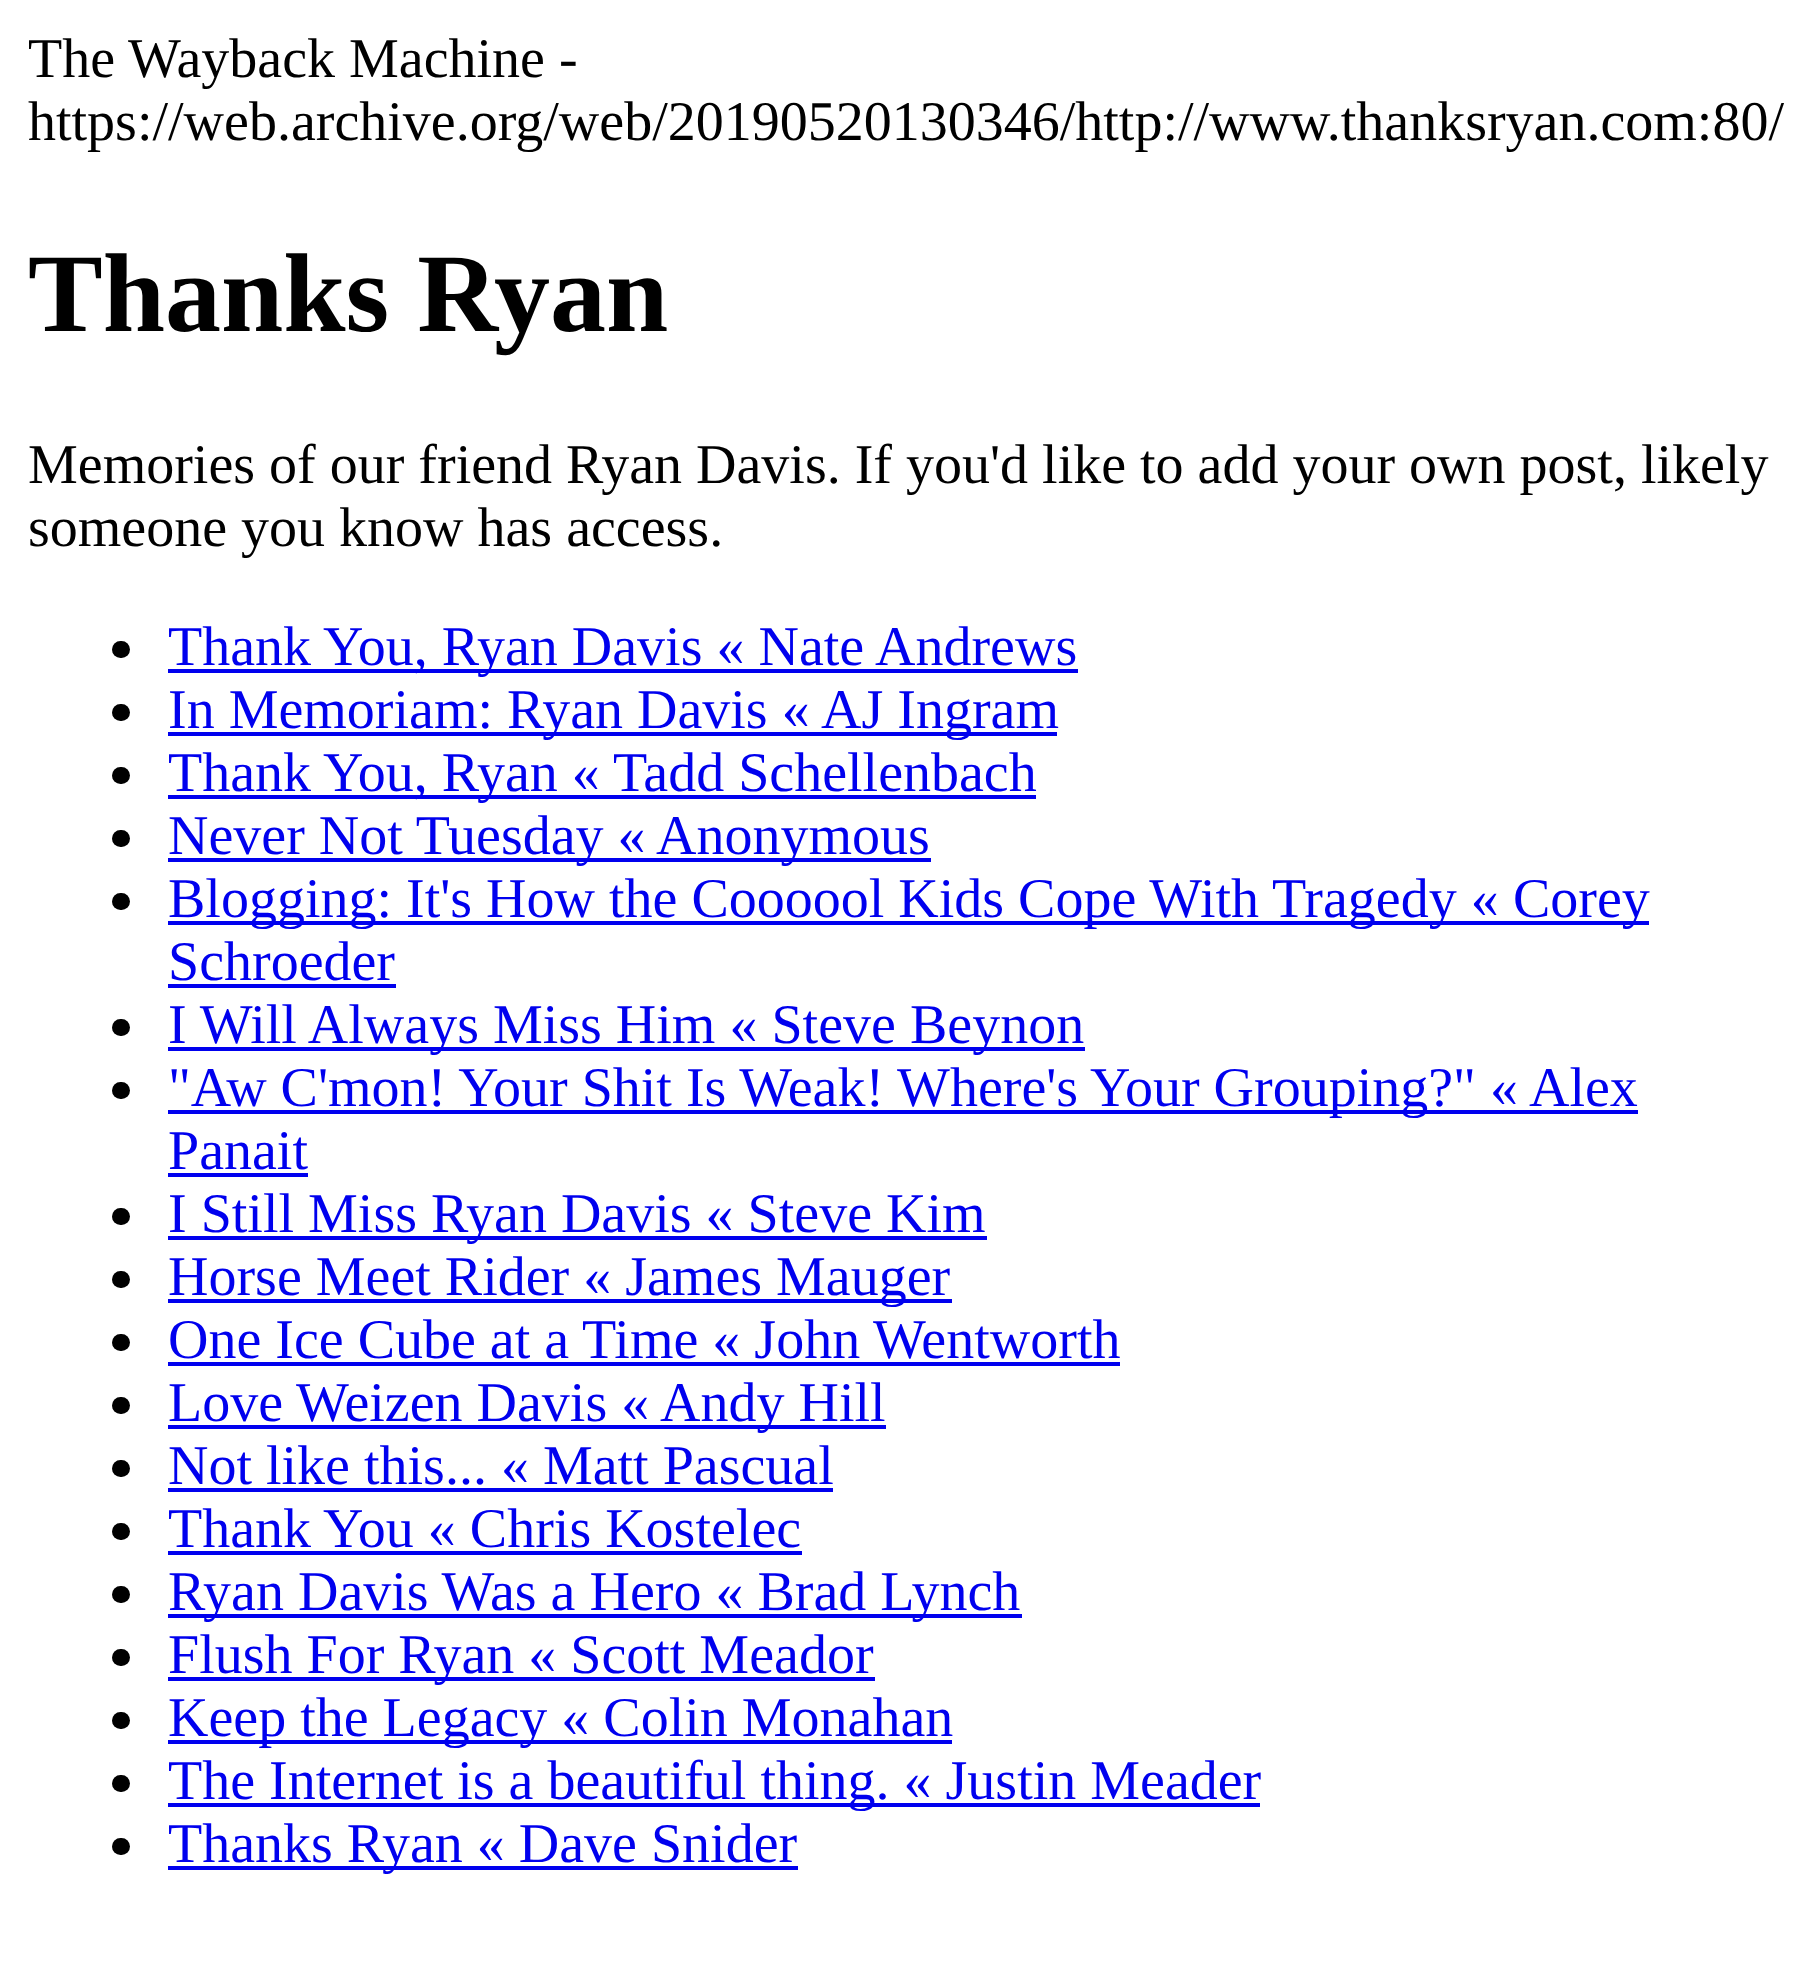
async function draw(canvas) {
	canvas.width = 1803;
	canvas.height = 1969;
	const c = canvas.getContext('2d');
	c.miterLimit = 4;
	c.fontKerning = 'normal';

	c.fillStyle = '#fff';
	c.fillRect(0, 0, 1803, 1969);
	c.font = '56px Liberation Serif';
	c.fillStyle = '#000';
	c.fillText('The Wayback Machine -', 28, 77);
	c.fillText('https://web.archive.org/web/20190520130346/http://www.thanksryan.com:80/', 28, 140);
	c.font = 'bold 112px Liberation Serif';
	c.fillText('Thanks Ryan', 28, 331);
	c.font = '56px Liberation Serif';
	c.fillText('Memories of our friend Ryan Davis. If you\'d like to add your own post, likely', 28, 483);
	c.fillText('someone you know has access.', 28, 546);
	c.beginPath();
	c.roundRect(112, 641, 18, 17, 8.5);
	c.fill();
	c.fillStyle = '#00e';
	c.fillRect(168, 669, 910, 4);
	c.fillText('Thank You, Ryan Davis « Nate', 168, 665);
	c.fillText('Andrews', 875, 665);
	c.fillStyle = '#000';
	c.beginPath();
	c.roundRect(112, 704, 18, 17, 8.5);
	c.fill();
	c.fillStyle = '#00e';
	c.fillRect(168, 732, 889, 4);
	c.fillText('In Memoriam: Ryan Davis «', 168, 728);
	c.fillText('AJ Ingram', 821, 728);
	c.fillStyle = '#000';
	c.beginPath();
	c.roundRect(112, 767, 18, 17, 8.5);
	c.fill();
	c.fillStyle = '#00e';
	c.fillRect(168, 795, 868, 4);
	c.fillText('Thank You, Ryan «', 168, 791);
	c.fillText('Tadd Schellenbach', 613, 791);
	c.fillStyle = '#000';
	c.beginPath();
	c.roundRect(112, 830, 18, 17, 8.5);
	c.fill();
	c.fillStyle = '#00e';
	c.fillRect(168, 858, 434, 4);
	c.fillText('Never Not Tuesday «', 168, 854);
	c.fillRect(602, 858, 329, 4);
	c.fillText('Anonymous', 656, 854);
	c.fillStyle = '#000';
	c.beginPath();
	c.roundRect(112, 893, 18, 17, 8.5);
	c.fill();
	c.fillStyle = '#00e';
	c.fillRect(168, 921, 1288, 4);
	c.fillText('Blogging: It\'s How the Coooool Kids Cope With Tragedy «', 168, 917);
	c.fillRect(1456, 921, 193, 4);
	c.fillText('Corey', 1513, 917);
	c.fillText('Schroeder', 168, 980);
	c.fillRect(168, 984, 228, 4);
	c.fillStyle = '#000';
	c.beginPath();
	c.roundRect(112, 1019, 18, 17, 8.5);
	c.fill();
	c.fillStyle = '#00e';
	c.fillRect(168, 1047, 546, 4);
	c.fillText('I Will Always Miss Him « Steve', 168, 1043);
	c.fillRect(714, 1047, 371, 4);
	c.fillText('Beynon', 910, 1043);
	c.fillStyle = '#000';
	c.beginPath();
	c.roundRect(112, 1082, 18, 17, 8.5);
	c.fill();
	c.fillStyle = '#00e';
	c.fillRect(168, 1110, 1470, 4);
	for (const [text, x, y] of [
		['"Aw C\'mon! Your Shit Is Weak! Where\'s Your Grouping?" «', 168, 1106],
		['Alex', 1529, 1106],
		['Panait', 168, 1169],
	]) {
		c.fillText(text, x, y);
	}
	c.fillRect(168, 1173, 140, 4);
	c.fillStyle = '#000';
	c.beginPath();
	c.roundRect(112, 1208, 18, 17, 8.5);
	c.fill();
	c.fillStyle = '#00e';
	c.fillRect(168, 1236, 819, 4);
	c.fillText('I Still Miss Ryan Davis « Steve Kim', 168, 1232);
	c.fillStyle = '#000';
	c.beginPath();
	c.roundRect(112, 1271, 18, 17, 8.5);
	c.fill();
	c.fillStyle = '#00e';
	c.fillRect(168, 1299, 784, 4);
	c.fillText('Horse Meet Rider « James Mauger', 168, 1295);
	c.fillStyle = '#000';
	c.beginPath();
	c.roundRect(112, 1334, 18, 17, 8.5);
	c.fill();
	c.fillStyle = '#00e';
	c.fillText('One Ice Cube at a Time « John', 168, 1358);
	c.fillRect(168, 1362, 952, 4);
	c.fillText('Wentworth', 873, 1358);
	c.fillStyle = '#000';
	c.beginPath();
	c.roundRect(112, 1397, 18, 17, 8.5);
	c.fill();
	c.fillStyle = '#00e';
	c.fillText('Love Weizen Davis «', 168, 1421);
	c.fillRect(168, 1425, 718, 4);
	c.fillText('Andy Hill', 660, 1421);
	c.fillStyle = '#000';
	c.beginPath();
	c.roundRect(112, 1460, 18, 17, 8.5);
	c.fill();
	c.fillStyle = '#00e';
	c.fillText('Not like this... « Matt Pascual', 168, 1484);
	c.fillRect(168, 1488, 665, 4);
	c.fillStyle = '#000';
	c.beginPath();
	c.roundRect(112, 1523, 18, 17, 8.5);
	c.fill();
	c.fillStyle = '#00e';
	c.fillText('Thank You « Chris Kostelec', 168, 1547);
	c.fillRect(168, 1551, 634, 4);
	c.fillStyle = '#000';
	c.beginPath();
	c.roundRect(112, 1586, 18, 17, 8.5);
	c.fill();
	c.fillStyle = '#00e';
	c.fillRect(168, 1614, 854, 4);
	c.fillText('Ryan Davis Was a Hero « Brad Lynch', 168, 1610);
	c.fillStyle = '#000';
	c.beginPath();
	c.roundRect(112, 1649, 18, 17, 8.5);
	c.fill();
	c.fillStyle = '#00e';
	c.fillRect(168, 1677, 707, 4);
	c.fillText('Flush For Ryan « Scott Meador', 168, 1673);
	c.fillStyle = '#000';
	c.beginPath();
	c.roundRect(112, 1712, 18, 17, 8.5);
	c.fill();
	c.fillStyle = '#00e';
	c.fillRect(168, 1740, 378, 4);
	c.fillText('Keep the Legacy « Colin Monahan', 168, 1736);
	c.fillRect(546, 1740, 406, 4);
	c.fillStyle = '#000';
	c.beginPath();
	c.roundRect(112, 1775, 18, 17, 8.5);
	c.fill();
	c.fillStyle = '#00e';
	c.fillRect(168, 1803, 1092, 4);
	c.fillText('The Internet is a beautiful thing. « Justin Meader', 168, 1799);
	c.fillStyle = '#000';
	c.beginPath();
	c.roundRect(112, 1838, 18, 17, 8.5);
	c.fill();
	c.fillStyle = '#00e';
	c.fillRect(168, 1866, 630, 4);
	c.fillText('Thanks Ryan « Dave Snider', 168, 1862);
}

draw(document.querySelector('canvas'));
